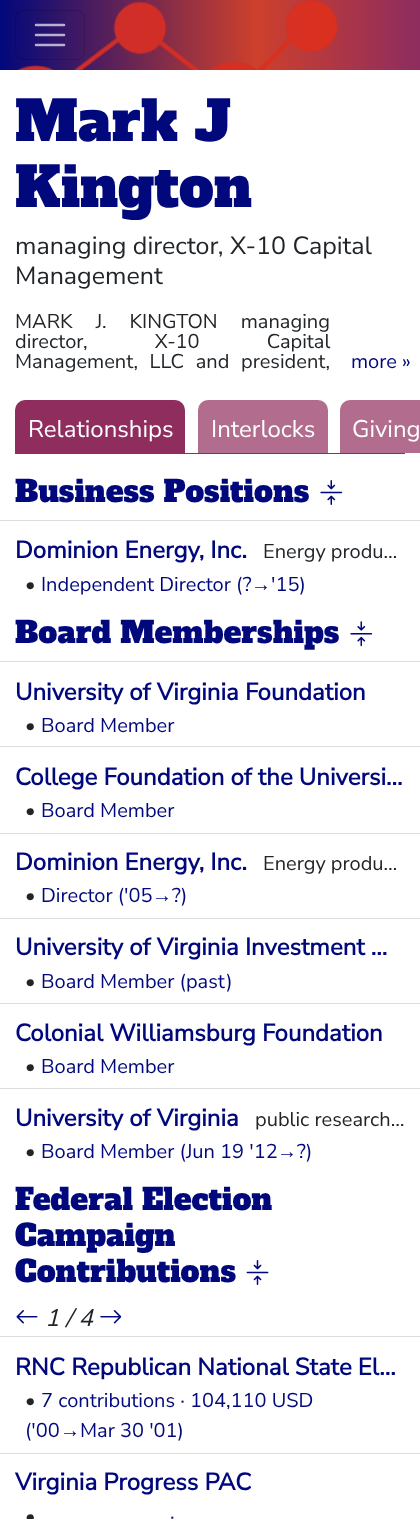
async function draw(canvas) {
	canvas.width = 420;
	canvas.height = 1519;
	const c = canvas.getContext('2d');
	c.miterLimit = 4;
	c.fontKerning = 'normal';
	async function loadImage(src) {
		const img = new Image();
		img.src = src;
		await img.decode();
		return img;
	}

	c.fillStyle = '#fff';
	c.fillRect(0, 0, 420, 1519);
	c.drawImage(await loadImage('img1.png'), 0, 0, 420, 70);
	c.beginPath();
	c.roundRect(15.5, 10.5, 69, 49, 7.5);
	c.strokeStyle = '#00000026';
	c.stroke();
	c.beginPath();
	c.moveTo(36, 25);
	c.lineTo(64, 25);
	c.moveTo(36, 35);
	c.lineTo(64, 35);
	c.moveTo(36, 45);
	c.lineTo(64, 45);
	c.strokeStyle = '#e5e6f1bf';
	c.lineWidth = 2.5;
	c.lineCap = 'round';
	c.stroke();
	c.font = '55px Alfa Slab One';
	c.fillStyle = '#01087c';
	c.fillText('Mark J', 15, 141);
	c.fillText('Kington', 15, 207);
	c.font = '25px Nunito Sans';
	c.fillStyle = '#212529';
	c.fillText('managing director, X-10 Capital', 15, 254);
	c.fillText('Management', 15, 284);
	c.wordSpacing = '18px';
	c.font = '20px Nunito Sans';
	c.fillText('MARK J. KINGTON managing', 15, 328);
	c.wordSpacing = '62px';
	c.fillText('director, X-10 Capital', 15, 348);
	c.wordSpacing = '6.5px';
	c.fillText('Management, LLC and president,', 15, 368);
	c.wordSpacing = '0px';
	c.fillStyle = '#01087c';
	c.fillText('more »', 351, 368);
	c.fillStyle = '#8f2d5e';
	c.fillRect(15, 453, 390, 1);
	c.beginPath();
	c.roundRect(15, 400, 170, 53, [10, 10, 0, 0]);
	c.fill();
	c.font = '24px Nunito Sans';
	c.fillStyle = '#fff';
	c.fillText('Relationships', 28, 437);
	c.fillStyle = '#b16c8e';
	c.beginPath();
	c.roundRect(198, 400, 130, 53, [10, 10, 0, 0]);
	c.fill();
	c.fillStyle = '#fff';
	c.fillText('Interlocks', 211, 437);
	c.fillStyle = '#b16c8e';
	c.beginPath();
	c.roundRect(340, 400, 80, 53, [10, 0, 0, 0]);
	c.fill();
	c.fillStyle = '#fff';
	c.fillText('Giving', 352, 437);
	c.font = '30px Alfa Slab One';
	c.fillStyle = '#01087c';
	c.fillText('Business Positions', 15, 502);
	c.drawImage(await loadImage('img2.png'), 320, 480, 23, 25);
	c.fillStyle = '#ddd';
	c.fillRect(0, 520, 420, 1);
	c.font = 'bold 24px Nunito Sans';
	c.fillStyle = '#01087c';
	c.fillText('Dominion Energy, Inc.', 15, 558);
	c.font = '20px Nunito Sans';
	c.fillStyle = '#212529';
	c.fillText('Energy produ…', 263, 558);
	c.fillText('•', 25, 591);
	c.fillStyle = '#01087c';
	c.fillText('Independent Director (?', 41, 591);
	c.font = '20px Liberation Sans';
	c.fillText('→', 251, 591);
	c.font = '20px Nunito Sans';
	c.fillText('\'15)', 271, 591);
	c.font = '30px Alfa Slab One';
	c.fillText('Board Memberships', 15, 643);
	c.drawImage(await loadImage('img3.png'), 350, 621, 23, 26);
	c.fillStyle = '#ddd';
	c.fillRect(0, 661, 420, 1);
	c.font = 'bold 24px Nunito Sans';
	c.fillStyle = '#01087c';
	c.fillText('University of Virginia Foundation', 15, 700);
	c.font = '20px Nunito Sans';
	c.fillStyle = '#212529';
	c.fillText('•', 25, 732);
	c.fillStyle = '#01087c';
	c.fillText('Board Member', 41, 732);
	c.fillStyle = '#ddd';
	c.fillRect(0, 746, 420, 1);
	c.font = 'bold 24px Nunito Sans';
	c.fillStyle = '#01087c';
	c.fillText('College Foundation of the Universi…', 15, 785);
	c.font = '20px Nunito Sans';
	c.fillStyle = '#212529';
	c.fillText('•', 25, 817);
	c.fillStyle = '#01087c';
	c.fillText('Board Member', 41, 817);
	c.fillStyle = '#ddd';
	c.fillRect(0, 833, 420, 1);
	c.font = 'bold 24px Nunito Sans';
	c.fillStyle = '#01087c';
	c.fillText('Dominion Energy, Inc.', 15, 870);
	c.font = '20px Nunito Sans';
	c.fillStyle = '#212529';
	c.fillText('Energy produ…', 263, 870);
	c.fillText('•', 25, 902);
	c.fillStyle = '#01087c';
	c.fillText('Director (\'05', 41, 902);
	c.font = '20px Liberation Sans';
	c.fillText('→', 152, 902);
	c.font = '20px Nunito Sans';
	c.fillText('?)', 172, 902);
	c.fillStyle = '#ddd';
	c.fillRect(0, 918, 420, 1);
	c.font = 'bold 24px Nunito Sans';
	c.fillStyle = '#01087c';
	c.fillText('University of Virginia Investment …', 15, 955);
	c.font = '20px Nunito Sans';
	c.fillStyle = '#212529';
	c.fillText('•', 25, 988);
	c.fillStyle = '#01087c';
	c.fillText('Board Member (past)', 41, 988);
	c.fillStyle = '#ddd';
	c.fillRect(0, 1003, 420, 1);
	c.font = 'bold 24px Nunito Sans';
	c.fillStyle = '#01087c';
	c.fillText('Colonial Williamsburg Foundation', 15, 1041);
	c.font = '20px Nunito Sans';
	c.fillStyle = '#212529';
	c.fillText('•', 25, 1073);
	c.fillStyle = '#01087c';
	c.fillText('Board Member', 41, 1073);
	c.fillStyle = '#ddd';
	c.fillRect(0, 1088, 420, 1);
	c.font = 'bold 24px Nunito Sans';
	c.fillStyle = '#01087c';
	c.fillText('University of Virginia', 15, 1126);
	c.font = '20px Nunito Sans';
	c.fillStyle = '#212529';
	c.fillText('public research…', 255, 1126);
	c.fillText('•', 25, 1158);
	c.fillStyle = '#01087c';
	c.fillText('Board Member (Jun 19 \'12', 41, 1158);
	c.font = '20px Liberation Sans';
	c.fillText('→', 277, 1158);
	c.font = '20px Nunito Sans';
	c.fillText('?)', 297, 1158);
	c.font = '30px Alfa Slab One';
	for (const [text, x, y] of [
		['Federal Election', 15, 1210],
		['Campaign', 15, 1246],
		['Contributions', 15, 1282],
	]) {
		c.fillText(text, x, y);
	}
	c.drawImage(await loadImage('img4.png'), 246, 1260, 23, 25);
	c.drawImage(await loadImage('img5.png'), 16, 1310, 22, 14);
	c.font = 'italic 24px Nunito Sans';
	c.fillStyle = '#212529';
	c.fillText('1 / 4', 45, 1326);
	c.drawImage(await loadImage('img6.png'), 100, 1310, 22, 14);
	c.fillStyle = '#ddd';
	c.fillRect(0, 1336, 420, 1);
	c.font = 'bold 24px Nunito Sans';
	c.fillStyle = '#01087c';
	c.fillText('RNC Republican National State El…', 15, 1375);
	c.font = '20px Nunito Sans';
	c.fillStyle = '#212529';
	c.fillText('•', 25, 1407);
	c.fillStyle = '#01087c';
	c.fillText('7 contributions · 104,110 USD', 41, 1407);
	c.fillText('(\'00', 25, 1437);
	c.font = '20px Liberation Sans';
	c.fillText('→', 60, 1437);
	c.font = '20px Nunito Sans';
	c.fillText('Mar 30 \'01)', 80, 1437);
	c.fillStyle = '#ddd';
	c.fillRect(0, 1453, 420, 1);
	c.font = 'bold 24px Nunito Sans';
	c.fillStyle = '#01087c';
	c.fillText('Virginia Progress PAC', 15, 1490);
	c.font = '20px Nunito Sans';
	c.fillStyle = '#212529';
	c.fillText('•', 25, 1523);
	c.fillStyle = '#01087c';
	c.fillText('·', 170, 1523);
}

draw(document.querySelector('canvas'));
